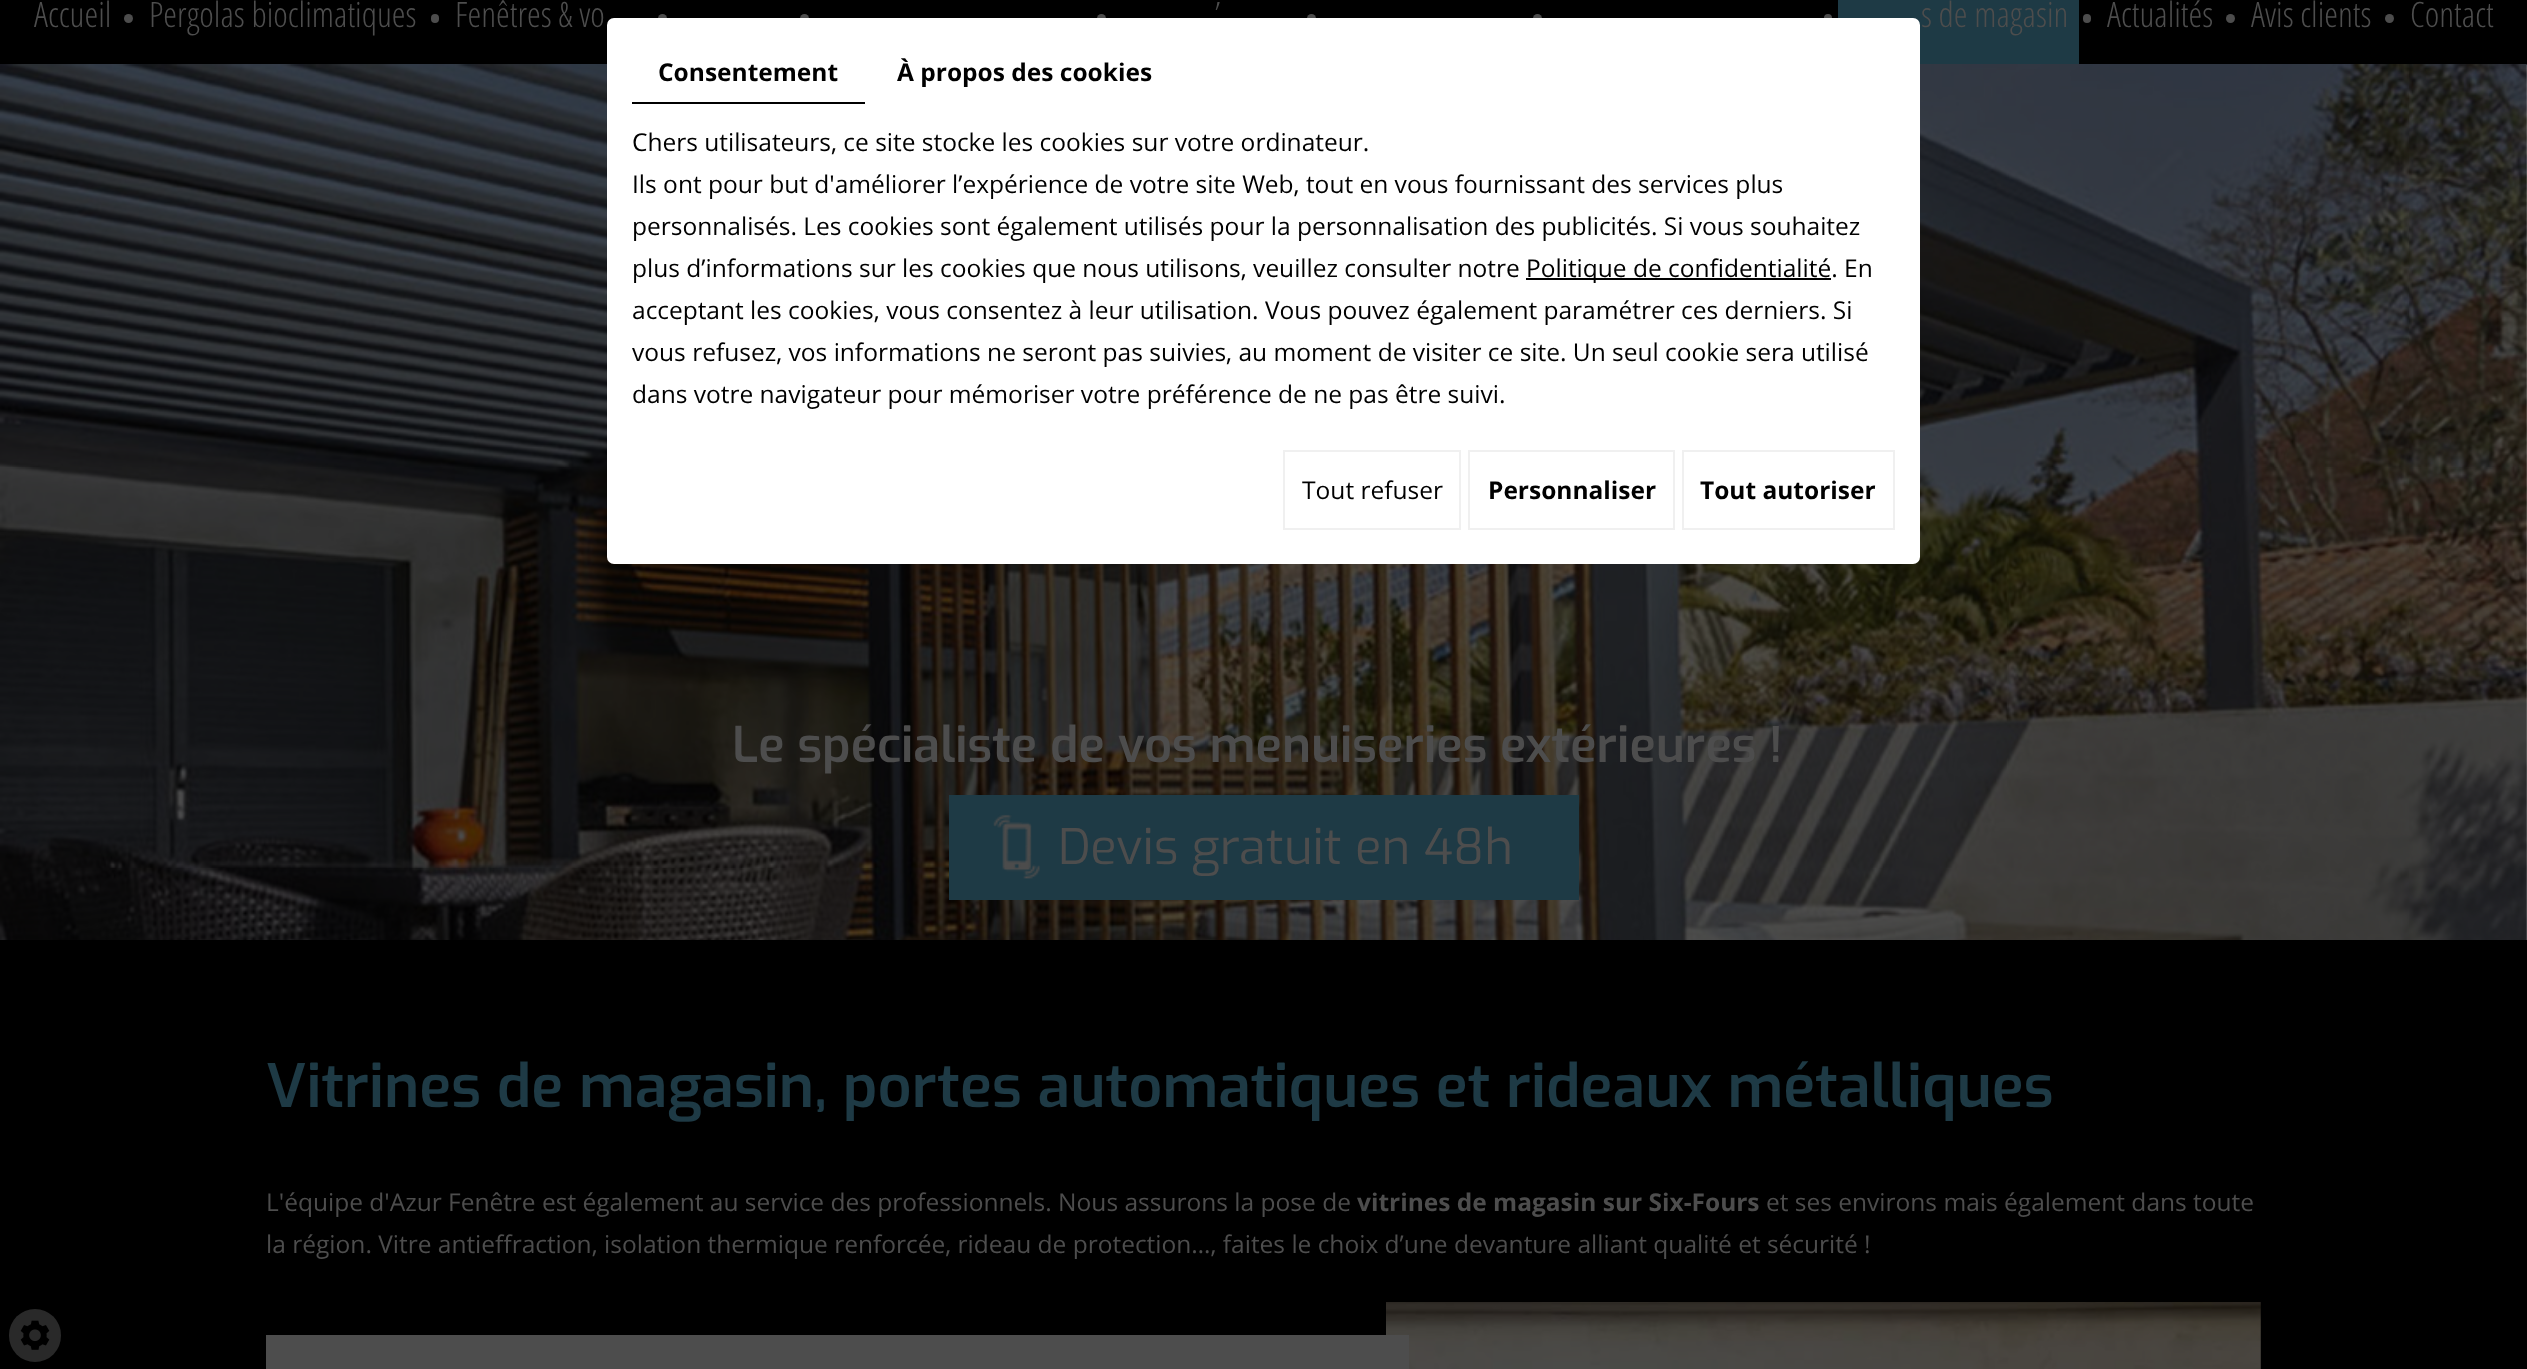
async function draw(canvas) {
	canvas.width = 2527;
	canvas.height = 1369;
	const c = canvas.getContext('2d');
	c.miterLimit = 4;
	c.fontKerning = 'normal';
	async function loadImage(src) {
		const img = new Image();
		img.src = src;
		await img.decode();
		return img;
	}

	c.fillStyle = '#fff';
	c.fillRect(0, 0, 2527, 1369);
	c.fillStyle = '#000';
	c.fillRect(0, 0, 2527, 65);
	c.font = '300 35px Open Sans Condensed';
	c.fillStyle = '#4d4d4d';
	c.fillText('Accueil', 34, 27);
	c.beginPath();
	c.arc(128.5, 18.5, 4.5, 0, 2 * Math.PI);
	c.fill();
	c.fillText('Pergolas bioclimatiques', 149, 27);
	c.beginPath();
	c.roundRect(431, 14, 8, 9, 4);
	c.fill();
	c.fillText('Fenêtres & vo', 455, 27);
	c.fillText('’', 1215, 27);
	c.beginPath();
	c.arc(1101.5, 18.5, 4.5, 0, 2 * Math.PI);
	c.fill();
	c.beginPath();
	c.roundRect(1824, 14, 8, 9, 4);
	c.fill();
	c.fillStyle = '#1e3a45';
	c.fillRect(1838, 0, 241, 64);
	c.fillStyle = '#4d4d4d';
	c.fillText('s de magasin', 1921, 27);
	c.beginPath();
	c.roundRect(2083, 14, 8, 9, 4);
	c.fill();
	c.fillText('Actualités', 2107, 27);
	c.beginPath();
	c.arc(2230.5, 18.5, 4.5, 0, 2 * Math.PI);
	c.fill();
	c.fillText('Avis clients', 2251, 27);
	c.beginPath();
	c.arc(2389.5, 18.5, 4.5, 0, 2 * Math.PI);
	c.fill();
	c.fillText('Contact', 2410, 27);
	c.beginPath();
	c.arc(662.5, 18.5, 4.5, 0, 2 * Math.PI);
	c.fill();
	c.beginPath();
	c.arc(804.5, 18.5, 4.5, 0, 2 * Math.PI);
	c.fill();
	c.beginPath();
	c.arc(1311.5, 18.5, 4.5, 0, 2 * Math.PI);
	c.fill();
	c.beginPath();
	c.arc(1537.5, 18.5, 4.5, 0, 2 * Math.PI);
	c.fill();
	c.drawImage(await loadImage('img1.png'), 0, 64, 2527, 876);
	c.font = '600 49px Exo';
	c.fillText('Le spécialiste de vos menuiseries extérieures !', 732, 762);
	c.fillStyle = '#1e3a45';
	c.fillRect(949, 795, 630, 105);
	c.drawImage(await loadImage('img2.png'), 993, 814, 47, 65);
	c.font = '49px Exo';
	c.fillStyle = '#4d4d4d';
	c.fillText('Devis gratuit en 48h', 1058, 864);
	c.fillStyle = '#fff';
	c.beginPath();
	c.roundRect(607, 18, 1313, 546, 7);
	c.fill();
	c.fillStyle = '#000';
	c.fillRect(632, 102, 233, 2);
	c.font = 'bold 24.5px Open Sans';
	c.fillText('Consentement', 658, 81);
	c.fillText('À propos des cookies', 897, 81);
	c.font = '24.5px Open Sans';
	for (const [text, x, y] of [
		['Chers utilisateurs, ce site stocke les cookies sur votre ordinateur.', 632, 151],
		['Ils ont pour but d\'améliorer l’expérience de votre site Web, tout en vous fournissant des services plus', 632, 193],
		['personnalisés. Les cookies sont également utilisés pour la personnalisation des publicités. Si vous souhaitez', 632, 235],
		['plus d’informations sur les cookies que nous utilisons, veuillez consulter notre', 632, 277],
	]) {
		c.fillText(text, x, y);
	}
	c.fillRect(1526, 278, 305, 2);
	for (const [text, x, y] of [
		['Politique de confidentialité. En', 1526, 277],
		['acceptant les cookies, vous consentez à leur utilisation. Vous pouvez également paramétrer ces derniers. Si', 632, 319],
		['vous refusez, vos informations ne seront pas suivies, au moment de visiter ce site. Un seul cookie sera utilisé', 632, 361],
		['dans votre navigateur pour mémoriser votre préférence de ne pas être suivi.', 632, 403],
	]) {
		c.fillText(text, x, y);
	}
	c.strokeStyle = '#f0f0f0';
	c.lineWidth = 2;
	c.strokeRect(1284, 451, 176, 78);
	c.fillText('Tout refuser', 1302, 499);
	c.strokeRect(1469, 451, 205, 78);
	c.font = 'bold 24.5px Open Sans';
	c.fillText('Personnaliser', 1488, 499);
	c.strokeRect(1683, 451, 211, 78);
	c.fillText('Tout autoriser', 1700, 499);
	c.fillRect(0, 940, 2527, 429);
	c.font = '600 59.5px Exo';
	c.fillStyle = '#1e3a45';
	c.fillText('Vitrines de magasin, portes automatiques et rideaux métalliques', 266, 1107);
	c.font = '24.5px Open Sans';
	c.fillStyle = '#4d4d4d';
	c.fillText('L\'équipe d\'Azur Fenêtre est également au service des professionnels. Nous assurons la pose de', 266, 1211);
	c.font = 'bold 24.5px Open Sans';
	c.fillText('vitrines de magasin sur Six-Fours', 1357, 1211);
	c.font = '24.5px Open Sans';
	c.fillText('et ses environs mais également dans toute', 1766, 1211);
	c.fillText('la région. Vitre antieffraction, isolation thermique renforcée, rideau de protection…, faites le choix d’une devanture alliant qualité et sécurité !', 266, 1253);
	c.drawImage(await loadImage('img3.png'), 1386, 1302, 875, 67);
	c.fillRect(266, 1335, 1143, 34);
	c.fillStyle = '#292929';
	c.beginPath();
	c.roundRect(9, 1309, 52, 53, 26);
	c.fill();
	c.drawImage(await loadImage('img4.png'), 20, 1320, 30, 30);
}

draw(document.querySelector('canvas'));
